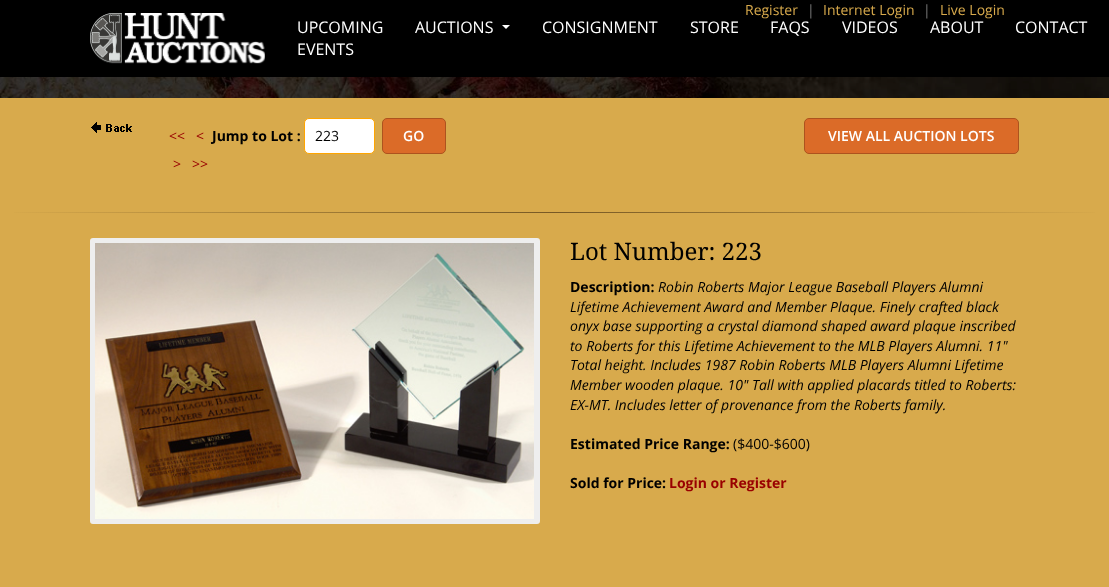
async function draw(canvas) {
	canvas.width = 1109;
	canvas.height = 587;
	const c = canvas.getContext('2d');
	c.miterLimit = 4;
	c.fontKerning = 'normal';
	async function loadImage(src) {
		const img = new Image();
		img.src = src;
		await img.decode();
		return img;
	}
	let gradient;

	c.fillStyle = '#d8aa4c';
	c.fillRect(0, 0, 1109, 587);
	c.fillStyle = '#000';
	c.fillRect(0, 0, 1109, 77);
	c.font = '14px Open Sans';
	c.fillStyle = '#d8aa4c';
	c.fillText('Register', 745, 15);
	c.fillStyle = '#7b7b7b';
	c.fillText('|', 807, 15);
	c.fillStyle = '#d8aa4c';
	c.fillText('Internet Login', 823, 15);
	c.fillStyle = '#7b7b7b';
	c.fillText('|', 923, 15);
	c.fillStyle = '#d8aa4c';
	c.fillText('Live Login', 940, 15);
	c.drawImage(await loadImage('img1.png'), 90, 13, 175, 51);
	c.font = '16px Open Sans';
	c.fillStyle = '#fff';
	for (const [text, x, y] of [
		['UPCOMING', 297, 33],
		['EVENTS', 297, 55],
		['AUCTIONS', 415, 33],
	]) {
		c.fillText(text, x, y);
	}
	c.beginPath();
	c.moveTo(502, 25);
	c.lineTo(510, 25);
	c.lineTo(506, 29);
	c.closePath();
	c.fill();
	for (const [text, x, y] of [
		['CONSIGNMENT', 542, 33],
		['STORE', 690, 33],
		['FAQS', 770, 33],
		['VIDEOS', 842, 33],
		['ABOUT', 930, 33],
		['CONTACT', 1015, 33],
	]) {
		c.fillText(text, x, y);
	}
	c.drawImage(await loadImage('img2.png'), 0, 77, 1109, 21);
	c.drawImage(await loadImage('img3.png'), 91, 122, 41, 11);
	c.font = '14px Open Sans';
	c.fillStyle = '#900';
	c.fillText('<<', 169, 141);
	c.fillText('<', 196, 141);
	c.font = 'bold 14px Open Sans';
	c.fillStyle = '#000';
	c.fillText('Jump to Lot :', 212, 141);
	c.fillStyle = '#fff';
	c.beginPath();
	c.roundRect(304.5, 118.5, 70, 35, 4.5);
	c.fill();
	c.strokeStyle = '#ffa500';
	c.stroke();
	c.font = '14px Open Sans';
	c.fillStyle = '#000';
	c.fillText('223', 315, 141);
	c.fillStyle = '#db6b28';
	c.beginPath();
	c.roundRect(382.5, 118.5, 63, 35, 4.5);
	c.fill();
	c.strokeStyle = '#ad531e';
	c.stroke();
	c.font = '600 14px Open Sans';
	c.fillStyle = '#fff';
	c.fillText('GO', 403, 141);
	c.font = '14px Open Sans';
	c.fillStyle = '#900';
	c.fillText('>', 173, 169);
	c.fillText('>>', 192, 169);
	c.fillStyle = '#db6b28';
	c.beginPath();
	c.roundRect(804.5, 118.5, 214, 35, 4.5);
	c.fill();
	c.stroke();
	c.font = '600 14px Open Sans';
	c.fillStyle = '#fff';
	c.fillText('VIEW ALL AUCTION LOTS', 828, 141);
	gradient = c.createLinearGradient(0, 213, 1109, 212);
	gradient.addColorStop(0, '#d8aa4c');
	gradient.addColorStop(0.5, '#775925');
	gradient.addColorStop(1, '#d8aa4c');
	c.fillStyle = gradient;
	c.fillRect(14, 212, 1081, 1);
	c.fillStyle = '#eee';
	c.beginPath();
	c.roundRect(92.5, 240.5, 445, 281, 0.5);
	c.fill();
	c.strokeStyle = '#eee';
	c.lineWidth = 5;
	c.stroke();
	c.drawImage(await loadImage('img4.png'), 95, 243, 439, 276);
	c.font = '24px Droid Serif';
	c.fillStyle = '#000';
	c.fillText('Lot Number: 223', 570, 260);
	c.font = 'bold 14px Open Sans';
	c.fillText('Description:', 570, 292);
	c.font = 'italic 14px Open Sans';
	for (const [text, x, y] of [
		['Robin Roberts Major League Baseball Players Alumni', 658, 292],
		['Lifetime Achievement Award and Member Plaque. Finely crafted black', 570, 312],
		['onyx base supporting a crystal diamond shaped award plaque inscribed', 570, 331],
		['to Roberts for this Lifetime Achievement to the MLB Players Alumni. 11"', 570, 351],
		['Total height. Includes 1987 Robin Roberts MLB Players Alumni Lifetime', 570, 370],
		['Member wooden plaque. 10" Tall with applied placards titled to Roberts:', 570, 390],
		['EX-MT. Includes letter of provenance from the Roberts family.', 570, 410],
	]) {
		c.fillText(text, x, y);
	}
	c.font = 'bold 14px Open Sans';
	c.fillText('Estimated Price Range:', 570, 449);
	c.font = '14px Open Sans';
	c.fillText('($400-$600)', 733, 449);
	c.font = 'bold 14px Open Sans';
	c.fillText('Sold for Price:', 570, 488);
	c.fillStyle = '#900';
	c.fillText('Login or Register', 669, 488);
}

draw(document.querySelector('canvas'));
